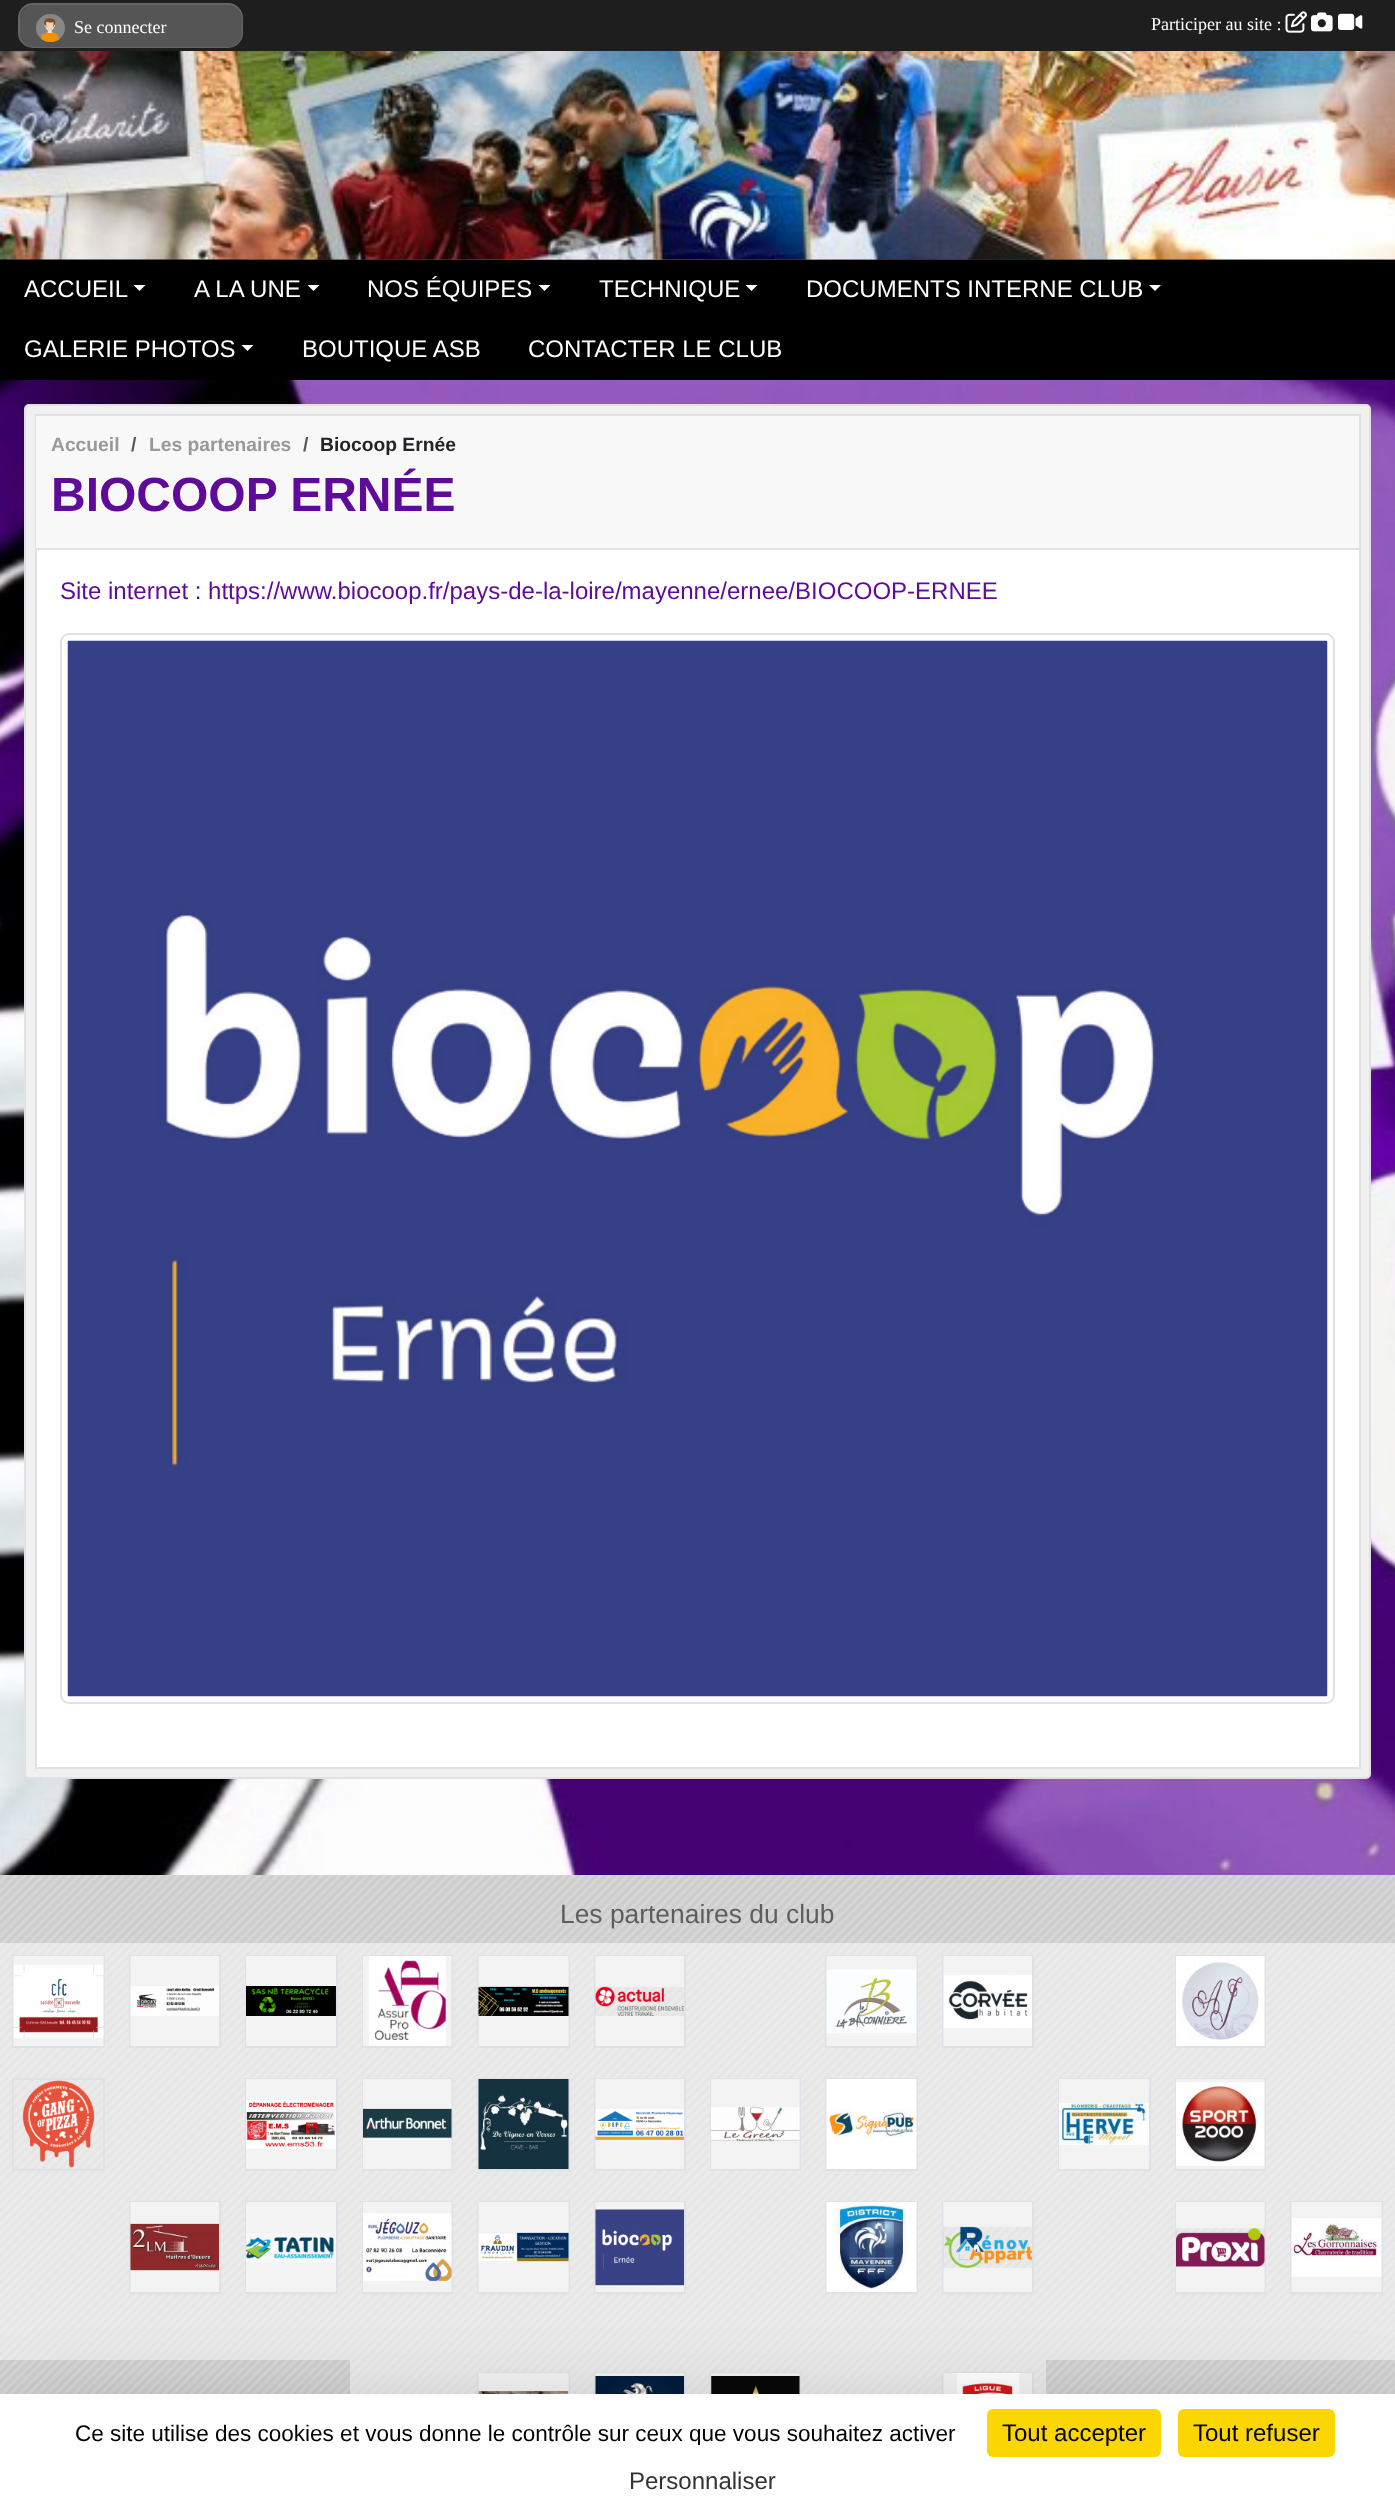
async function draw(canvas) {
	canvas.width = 1395;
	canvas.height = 2519;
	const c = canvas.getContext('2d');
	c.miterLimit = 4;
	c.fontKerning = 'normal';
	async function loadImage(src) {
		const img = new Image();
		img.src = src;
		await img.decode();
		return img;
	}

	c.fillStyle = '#fff';
	c.fillRect(0, 0, 1395, 2519);
	c.drawImage(await loadImage('img1.png'), 0, 259, 1395, 1616);
	c.fillStyle = '#1e1e1e';
	c.fillRect(0, 0, 1395, 51);
	c.fillStyle = '#333';
	c.beginPath();
	c.roundRect(19, 4, 223, 43, 14);
	c.fill();
	c.strokeStyle = '#666';
	c.lineWidth = 2;
	c.stroke();
	c.fillStyle = '#555';
	c.beginPath();
	c.roundRect(20, 5, 222, 42, 14);
	c.fill();
	c.drawImage(await loadImage('img2.png'), 36, 14, 29, 28);
	c.font = '18px Liberation Serif';
	c.fillStyle = '#fff';
	c.fillText('Se connecter', 74, 33);
	c.fillText('Participer au site :', 1151, 30);
	c.drawImage(await loadImage('img3.png'), 1285, 11, 22, 22);
	c.drawImage(await loadImage('img4.png'), 1311, 12, 22, 20);
	c.drawImage(await loadImage('img5.png'), 1338, 13, 25, 17);
	c.drawImage(await loadImage('img6.png'), 0, 51, 1395, 209);
	c.fillStyle = '#000';
	c.fillRect(0, 260, 1395, 120);
	c.font = '24px Liberation Sans';
	c.fillStyle = '#fff';
	c.fillText('ACCUEIL', 24, 297);
	c.beginPath();
	c.moveTo(133.5, 285);
	c.lineTo(145.5, 285);
	c.lineTo(139.5, 291);
	c.closePath();
	c.fill();
	c.fillText('A LA UNE', 194, 297);
	c.beginPath();
	c.moveTo(307.5, 285);
	c.lineTo(319.5, 285);
	c.lineTo(313.5, 291);
	c.closePath();
	c.fill();
	c.fillText('NOS ÉQUIPES', 367, 297);
	c.beginPath();
	c.moveTo(538.5, 285);
	c.lineTo(550.5, 285);
	c.lineTo(544.5, 291);
	c.closePath();
	c.fill();
	c.fillText('TECHNIQUE', 599, 297);
	c.beginPath();
	c.moveTo(745.5, 285);
	c.lineTo(757.5, 285);
	c.lineTo(751.5, 291);
	c.closePath();
	c.fill();
	c.fillText('DOCUMENTS INTERNE CLUB', 806, 297);
	c.beginPath();
	c.moveTo(1149, 285);
	c.lineTo(1161, 285);
	c.lineTo(1155, 291);
	c.closePath();
	c.fill();
	c.fillText('GALERIE PHOTOS', 24, 357);
	c.beginPath();
	c.moveTo(241.5, 345);
	c.lineTo(253.5, 345);
	c.lineTo(247.5, 351);
	c.closePath();
	c.fill();
	c.fillText('BOUTIQUE ASB', 302, 357);
	c.fillText('CONTACTER LE CLUB', 528, 357);
	c.fillStyle = '#f0f0f0';
	c.beginPath();
	c.roundRect(25, 405, 1345, 1373, 4);
	c.fill();
	c.strokeStyle = '#e1e1e1';
	c.stroke();
	c.fillStyle = '#fff';
	c.fillRect(37, 550, 1322, 1217);
	c.strokeRect(36, 415, 1324, 1353);
	c.fillStyle = '#f8f8f8';
	c.fillRect(36, 416, 1323, 132);
	c.fillStyle = '#e1e1e1';
	c.fillRect(36, 548, 1323, 2);
	c.font = 'bold 19.25px Liberation Sans';
	c.fillStyle = '#999';
	c.fillText('Accueil', 51, 451);
	c.fillStyle = '#575a5d';
	c.fillText('/', 131, 451);
	c.fillStyle = '#999';
	c.fillText('Les partenaires', 149, 451);
	c.fillStyle = '#575a5d';
	c.fillText('/', 303, 451);
	c.fillStyle = '#212529';
	c.fillText('Biocoop Ernée', 320, 451);
	c.font = 'bold 48px Liberation Sans';
	c.fillStyle = '#5f0a98';
	c.fillText('BIOCOOP ERNÉE', 51, 511);
	c.font = '24px Liberation Sans';
	c.fillText('Site internet : https://www.biocoop.fr/pays-de-la-loire/mayenne/ernee/BIOCOOP-ERNEE', 60, 599);
	c.beginPath();
	c.roundRect(61, 634, 1273, 1069, 8);
	c.strokeStyle = '#dee2e6';
	c.stroke();
	c.drawImage(await loadImage('img7.png'), 67, 640, 1261, 1057);
	c.drawImage(await loadImage('img8.png'), 0, 1875, 1395, 519);
	c.font = '26.4px Liberation Sans';
	c.fillStyle = '#5e5e5e';
	c.fillText('Les partenaires du club', 560, 1923);
	c.fillStyle = '#ffffff80';
	c.fillRect(0, 1943, 117, 123);
	c.strokeRect(13, 1956, 91, 91);
	c.drawImage(await loadImage('img9.png'), 13, 1956, 91, 90);
	c.fillRect(117, 1943, 116, 123);
	c.strokeRect(130, 1956, 90, 91);
	c.drawImage(await loadImage('img10.png'), 130, 1956, 89, 90);
	c.fillRect(233, 1943, 117, 123);
	c.strokeRect(246, 1956, 91, 91);
	c.drawImage(await loadImage('img11.png'), 246, 1956, 90, 90);
	c.fillRect(350, 1943, 115, 123);
	c.strokeRect(363, 1956, 89, 91);
	c.drawImage(await loadImage('img12.png'), 363, 1956, 89, 90);
	c.fillRect(465, 1943, 117, 123);
	c.strokeRect(478, 1956, 91, 91);
	c.drawImage(await loadImage('img13.png'), 478, 1956, 91, 90);
	c.fillRect(582, 1943, 116, 123);
	c.strokeRect(595, 1956, 90, 91);
	c.drawImage(await loadImage('img14.png'), 595, 1956, 89, 90);
	c.fillRect(698, 1943, 115, 123);
	c.fillRect(813, 1943, 117, 123);
	c.strokeRect(826, 1956, 91, 91);
	c.drawImage(await loadImage('img15.png'), 826, 1956, 91, 90);
	c.fillRect(930, 1943, 116, 123);
	c.strokeRect(943, 1956, 90, 91);
	c.drawImage(await loadImage('img16.png'), 943, 1956, 89, 90);
	c.fillRect(1046, 1943, 117, 123);
	c.fillRect(1163, 1943, 115, 123);
	c.strokeRect(1176, 1956, 89, 91);
	c.drawImage(await loadImage('img17.png'), 1176, 1956, 89, 90);
	c.fillRect(1278, 1943, 117, 123);
	c.fillRect(0, 2066, 117, 123);
	c.strokeRect(13, 2079, 91, 91);
	c.drawImage(await loadImage('img18.png'), 22, 2080, 73, 88);
	c.fillRect(117, 2066, 116, 123);
	c.fillRect(233, 2066, 117, 123);
	c.strokeRect(246, 2079, 91, 91);
	c.drawImage(await loadImage('img19.png'), 246, 2079, 90, 90);
	c.fillRect(350, 2066, 115, 123);
	c.strokeRect(363, 2079, 89, 91);
	c.drawImage(await loadImage('img20.png'), 363, 2079, 89, 90);
	c.fillRect(465, 2066, 117, 123);
	c.strokeRect(478, 2079, 91, 91);
	c.drawImage(await loadImage('img21.png'), 478, 2079, 91, 90);
	c.fillRect(582, 2066, 116, 123);
	c.strokeRect(595, 2079, 90, 91);
	c.drawImage(await loadImage('img22.png'), 595, 2079, 89, 90);
	c.fillRect(698, 2066, 115, 123);
	c.strokeRect(711, 2079, 89, 91);
	c.drawImage(await loadImage('img23.png'), 711, 2079, 89, 90);
	c.fillRect(813, 2066, 117, 123);
	c.strokeRect(826, 2079, 91, 91);
	c.drawImage(await loadImage('img24.png'), 826, 2079, 91, 90);
	c.fillRect(930, 2066, 116, 123);
	c.fillRect(1046, 2066, 117, 123);
	c.strokeRect(1059, 2079, 91, 91);
	c.drawImage(await loadImage('img25.png'), 1059, 2079, 90, 90);
	c.fillRect(1163, 2066, 115, 123);
	c.strokeRect(1176, 2079, 89, 91);
	c.drawImage(await loadImage('img26.png'), 1176, 2079, 89, 90);
	for (const [x, y, w, h, color] of [
		[1278, 2066, 117, 123, '#ffffff80'],
		[0, 2189, 117, 171, '#ffffff80'],
		[117, 2189, 116, 171, '#ffffff80'],
	]) {
		c.fillStyle = color;
		c.fillRect(x, y, w, h);
	}
	c.strokeRect(130, 2202, 90, 91);
	c.drawImage(await loadImage('img27.png'), 130, 2202, 89, 90);
	c.fillRect(233, 2189, 117, 171);
	c.strokeRect(246, 2202, 91, 91);
	c.drawImage(await loadImage('img28.png'), 246, 2202, 90, 90);
	c.fillRect(350, 2189, 115, 171);
	c.strokeRect(363, 2202, 89, 91);
	c.drawImage(await loadImage('img29.png'), 363, 2202, 89, 90);
	c.fillRect(465, 2189, 117, 171);
	c.strokeRect(478, 2202, 91, 91);
	c.drawImage(await loadImage('img30.png'), 478, 2202, 91, 90);
	c.fillRect(582, 2189, 116, 171);
	c.strokeRect(595, 2202, 90, 91);
	c.drawImage(await loadImage('img31.png'), 595, 2202, 89, 90);
	c.fillRect(698, 2189, 115, 171);
	c.fillRect(813, 2189, 117, 171);
	c.strokeRect(826, 2202, 91, 91);
	c.drawImage(await loadImage('img32.png'), 826, 2202, 91, 90);
	c.fillRect(930, 2189, 116, 171);
	c.strokeRect(943, 2202, 90, 91);
	c.drawImage(await loadImage('img33.png'), 943, 2202, 89, 90);
	c.fillRect(1046, 2189, 117, 171);
	c.fillRect(1163, 2189, 115, 171);
	c.strokeRect(1176, 2202, 89, 91);
	c.drawImage(await loadImage('img34.png'), 1176, 2202, 89, 90);
	c.fillRect(1278, 2189, 117, 171);
	c.strokeRect(1291, 2202, 91, 91);
	c.drawImage(await loadImage('img35.png'), 1291, 2202, 91, 90);
	c.fillRect(350, 2360, 115, 34);
	c.fillRect(465, 2360, 117, 34);
	c.strokeRect(478, 2373, 91, 91);
	c.drawImage(await loadImage('img36.png'), 478, 2373, 91, 21);
	c.fillRect(582, 2360, 116, 34);
	c.strokeRect(595, 2373, 90, 91);
	c.drawImage(await loadImage('img37.png'), 595, 2373, 89, 21);
	c.fillRect(698, 2360, 115, 34);
	c.strokeRect(711, 2373, 89, 91);
	c.drawImage(await loadImage('img38.png'), 711, 2373, 89, 21);
	c.fillRect(813, 2360, 117, 34);
	c.fillRect(930, 2360, 116, 34);
	c.strokeRect(943, 2373, 90, 91);
	c.drawImage(await loadImage('img39.png'), 943, 2373, 89, 21);
	c.fillStyle = '#00000040';
	c.filter = 'blur(45px)';
	c.beginPath();
	c.rect(0, 2424, 1395, 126);
	c.fill();
	c.filter = 'none';
	c.fillStyle = '#fff';
	c.fillRect(0, 2394, 1395, 125);
	c.save();
	c.beginPath();
	c.rect(60, 2420, 911, 25);
	c.clip();
	c.font = '22.5px Liberation Sans';
	c.fillStyle = '#000';
	c.fillText('Ce site utilise des cookies et vous donne le contrôle sur ceux que vous souhaitez activer', 75, 2441);
	c.restore();
	c.fillStyle = '#fbd600';
	c.beginPath();
	c.roundRect(987, 2409, 174, 48, 6);
	c.fill();
	c.font = '24px Liberation Sans';
	c.fillStyle = '#000';
	c.fillText('Tout accepter', 1002, 2441);
	c.fillStyle = '#fbd600';
	c.beginPath();
	c.roundRect(1178, 2409, 157, 48, 6);
	c.fill();
	c.fillStyle = '#000';
	c.fillText('Tout refuser', 1193, 2441);
	c.fillStyle = '#333';
	c.fillText('Personnaliser', 629, 2489);
}

draw(document.querySelector('canvas'));
